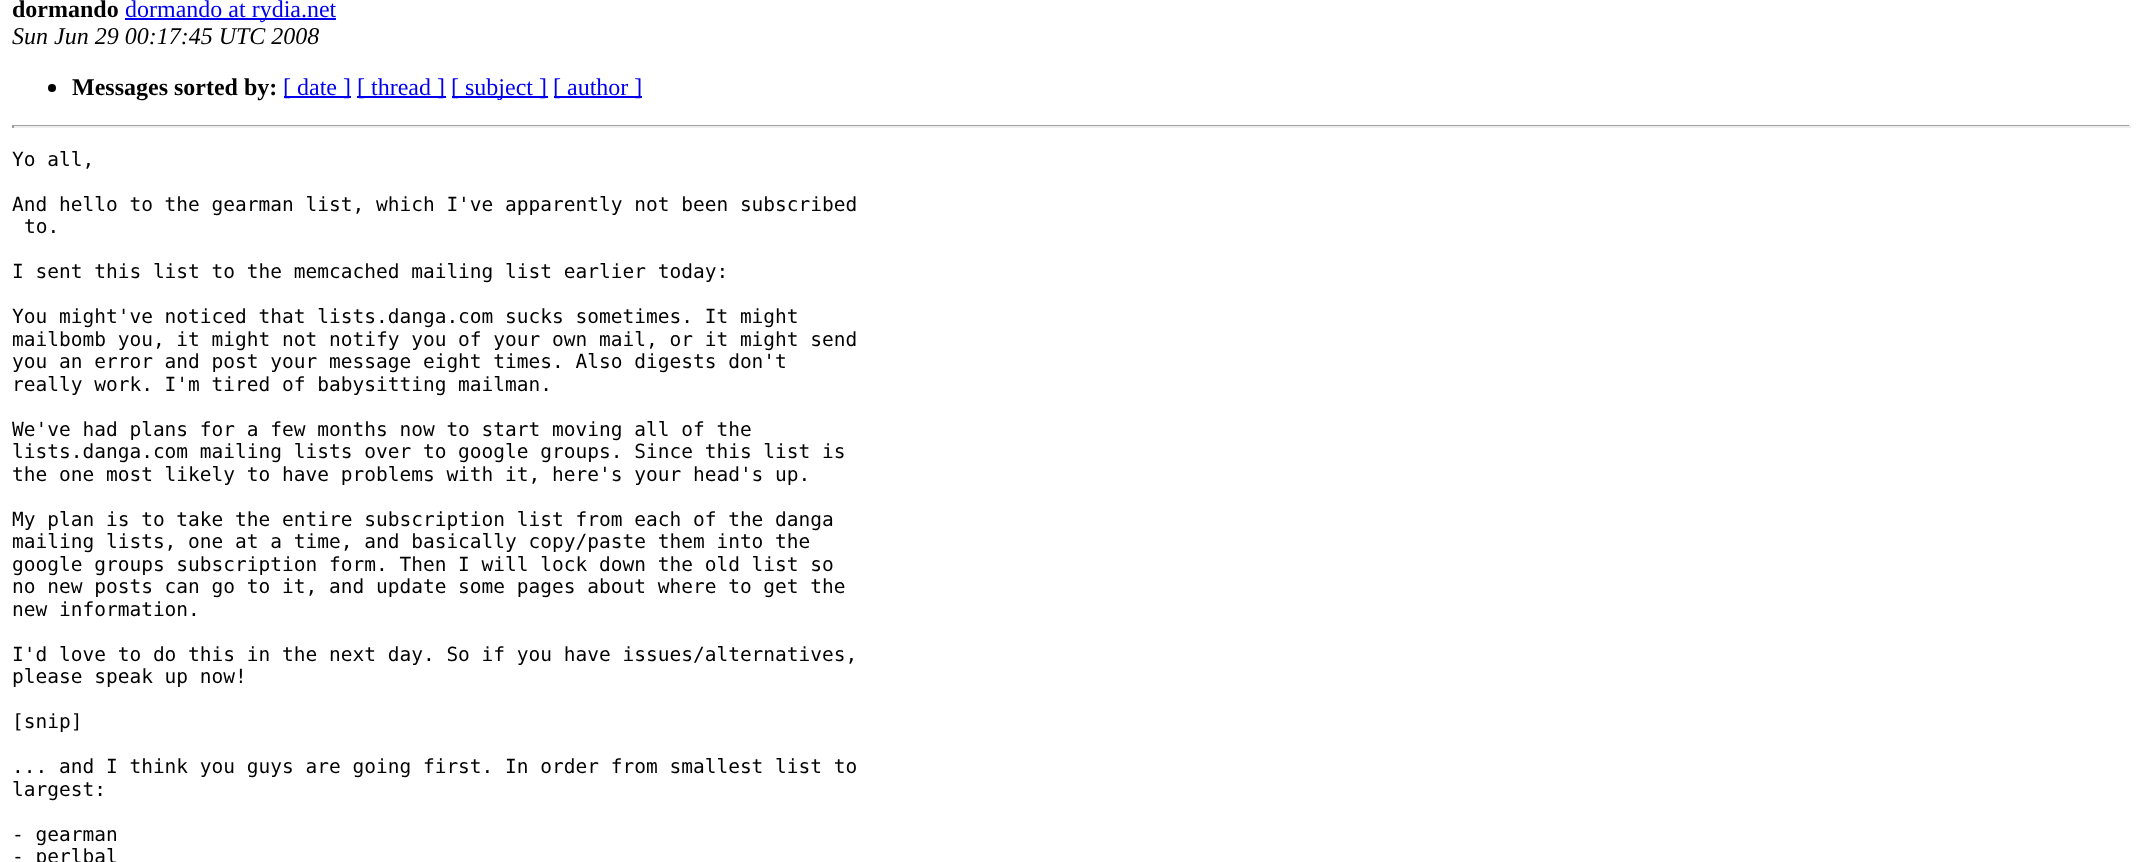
async function draw(canvas) {
	canvas.width = 2141;
	canvas.height = 862;
	const c = canvas.getContext('2d');
	c.miterLimit = 4;
	c.fontKerning = 'normal';

	c.fillStyle = '#fff';
	c.fillRect(0, 0, 2141, 862);
	c.font = 'bold 24px Liberation Serif';
	c.fillStyle = '#000';
	c.fillText('dormando', 12, 17);
	c.fillStyle = '#00e';
	c.fillRect(125, 18, 211, 2);
	c.font = '24px Liberation Serif';
	c.fillText('dormando at rydia.net', 125, 17);
	c.font = 'italic 24px Liberation Serif';
	c.fillStyle = '#000';
	c.fillText('Sun Jun 29 00:17:45 UTC 2008', 12, 44);
	c.beginPath();
	c.arc(52, 88, 4, 0, 2 * Math.PI);
	c.fill();
	c.font = 'bold 24px Liberation Serif';
	c.fillText('Messages sorted by:', 72, 95);
	c.fillStyle = '#00e';
	c.fillRect(284, 96, 67, 2);
	c.font = '24px Liberation Serif';
	c.fillText('[ date ]', 283, 95);
	c.fillRect(357, 96, 89, 2);
	c.fillText('[ thread ]', 357, 95);
	c.fillRect(452, 96, 96, 2);
	c.fillText('[ subject ]', 451, 95);
	c.fillRect(554, 96, 88, 2);
	c.fillText('[ author ]', 553, 95);
	for (const [x, y, w, h, color] of [
		[12, 125, 2118, 1, '#9f9f9f'],
		[2129, 125, 2, 3, '#eee'],
		[12, 126, 2118, 2, '#eee'],
		[12, 125, 2, 3, '#9f9f9f'],
	]) {
		c.fillStyle = color;
		c.fillRect(x, y, w, h);
	}
	c.font = '19.5px DejaVu Sans Mono';
	c.fillStyle = '#000';
	for (const [text, x, y] of [
		['Yo all,', 12, 166],
		['And hello to the gearman list, which I\'ve apparently not been subscribed', 12, 211],
		['to.', 24, 233],
		['I sent this list to the memcached mailing list earlier today:', 12, 278],
		['You might\'ve noticed that lists.danga.com sucks sometimes. It might', 12, 323],
		['mailbomb you, it might not notify you of your own mail, or it might send', 12, 346],
		['you an error and post your message eight times. Also digests don\'t', 12, 368],
		['really work. I\'m tired of babysitting mailman.', 12, 391],
		['We\'ve had plans for a few months now to start moving all of the', 12, 436],
		['lists.danga.com mailing lists over to google groups. Since this list is', 12, 458],
		['the one most likely to have problems with it, here\'s your head\'s up.', 12, 481],
		['My plan is to take the entire subscription list from each of the danga', 12, 526],
		['mailing lists, one at a time, and basically copy/paste them into the', 12, 548],
		['google groups subscription form. Then I will lock down the old list so', 12, 571],
		['no new posts can go to it, and update some pages about where to get the', 12, 593],
		['new information.', 12, 616],
		['I\'d love to do this in the next day. So if you have issues/alternatives,', 12, 661],
		['please speak up now!', 12, 683],
		['[snip]', 12, 728],
		['... and I think you guys are going first. In order from smallest list to', 12, 773],
		['largest:', 12, 796],
		['- gearman', 12, 841],
		['- perlbal', 12, 863],
	]) {
		c.fillText(text, x, y);
	}
}

draw(document.querySelector('canvas'));
